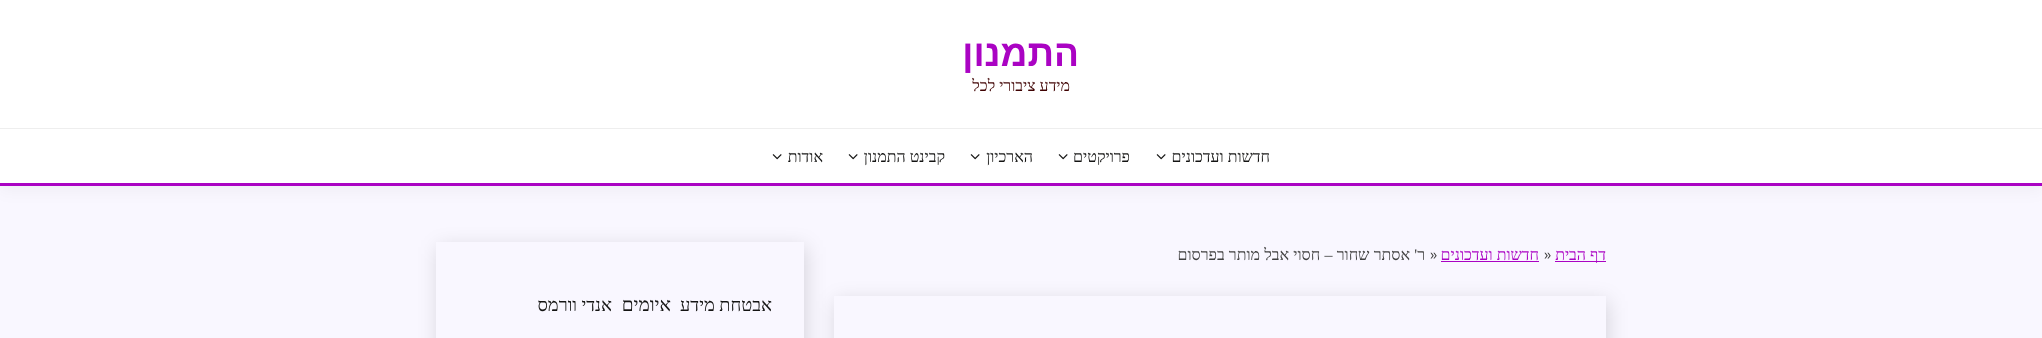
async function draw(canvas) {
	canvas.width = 2042;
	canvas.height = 338;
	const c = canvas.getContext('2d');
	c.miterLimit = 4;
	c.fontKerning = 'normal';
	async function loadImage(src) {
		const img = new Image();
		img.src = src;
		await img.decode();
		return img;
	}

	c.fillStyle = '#f9f7ff';
	c.fillRect(0, 0, 2042, 338);
	c.fillStyle = '#0000000a';
	c.filter = 'blur(7.5px)';
	c.beginPath();
	c.rect(0, 5, 2042, 186);
	c.fill();
	c.filter = 'none';
	c.fillStyle = '#fff';
	c.fillRect(0, 0, 2042, 183);
	c.fillStyle = '#eee';
	c.fillRect(0, 128, 2042, 1);
	c.direction = 'rtl';
	c.font = 'bold 37px Liberation Sans';
	c.fillStyle = '#aa03c3';
	c.fillText('התמנון', 1079, 66);
	c.font = '16px Liberation Serif';
	c.fillStyle = '#3f0202';
	c.fillText('מידע ציבורי לכל', 1070, 91);
	c.fillStyle = '#aa03c3';
	c.fillRect(0, 183, 2042, 3);
	c.fillStyle = '#141413';
	c.fillText('חדשות ועדכונים', 1270, 162);
	c.drawImage(await loadImage('img1.png'), 1156, 154, 10, 6);
	c.fillText('פרויקטים', 1130, 162);
	c.drawImage(await loadImage('img1.png'), 1058, 154, 10, 6);
	c.fillText('הארכיון', 1033, 162);
	c.drawImage(await loadImage('img1.png'), 970, 154, 10, 6);
	c.fillText('קבינט התמנון', 945, 162);
	c.drawImage(await loadImage('img1.png'), 848, 154, 10, 6);
	c.fillText('אודות', 823, 162);
	c.drawImage(await loadImage('img1.png'), 772, 154, 10, 6);
	c.fillStyle = '#aa03c3';
	c.fillRect(1555, 261, 51, 1);
	c.fillText('דף הבית', 1606, 260);
	c.direction = 'ltr';
	c.font = '16px Muli';
	c.fillStyle = '#404040';
	c.fillText('»', 1544, 260);
	c.direction = 'rtl';
	c.font = '16px Liberation Serif';
	c.fillStyle = '#aa03c3';
	c.fillText('חדשות ועדכונים', 1539, 260);
	c.fillRect(1441, 261, 98, 1);
	c.direction = 'ltr';
	c.font = '16px Muli';
	c.fillStyle = '#404040';
	c.fillText('»', 1430, 260);
	c.wordSpacing = '0.25px';
	c.direction = 'rtl';
	c.font = '16px Liberation Serif';
	c.fillText('ר\' אסתר שחור – חסוי אבל מותר בפרסום', 1425, 260);
	c.save();
	c.beginPath();
	c.moveTo(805, 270);
	c.lineTo(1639, 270);
	c.lineTo(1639, 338);
	c.lineTo(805, 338);
	c.closePath();
	c.moveTo(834, 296);
	c.lineTo(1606, 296);
	c.lineTo(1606, 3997);
	c.lineTo(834, 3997);
	c.closePath();
	c.clip('evenodd');
	c.fillStyle = '#00000024';
	c.filter = 'blur(10px)';
	c.beginPath();
	c.rect(836, 301, 772, 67);
	c.fill();
	c.filter = 'none';
	c.restore();
	c.save();
	c.beginPath();
	c.moveTo(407, 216);
	c.lineTo(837, 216);
	c.lineTo(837, 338);
	c.lineTo(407, 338);
	c.closePath();
	c.moveTo(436, 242);
	c.lineTo(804, 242);
	c.lineTo(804, 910);
	c.lineTo(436, 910);
	c.closePath();
	c.clip('evenodd');
	c.fillStyle = '#00000024';
	c.filter = 'blur(10px)';
	c.beginPath();
	c.rect(438, 247, 368, 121);
	c.fill();
	c.filter = 'none';
	c.restore();
	c.wordSpacing = '0px';
	c.font = '18.25px Liberation Serif';
	c.fillStyle = '#141413';
	c.fillText('אבטחת מידע', 772, 311);
	c.font = '19px Liberation Serif';
	c.fillText('איומים', 671, 311);
	c.font = '18.25px Liberation Serif';
	c.fillText('אנדי וורמס', 612, 311);
}

draw(document.querySelector('canvas'));
